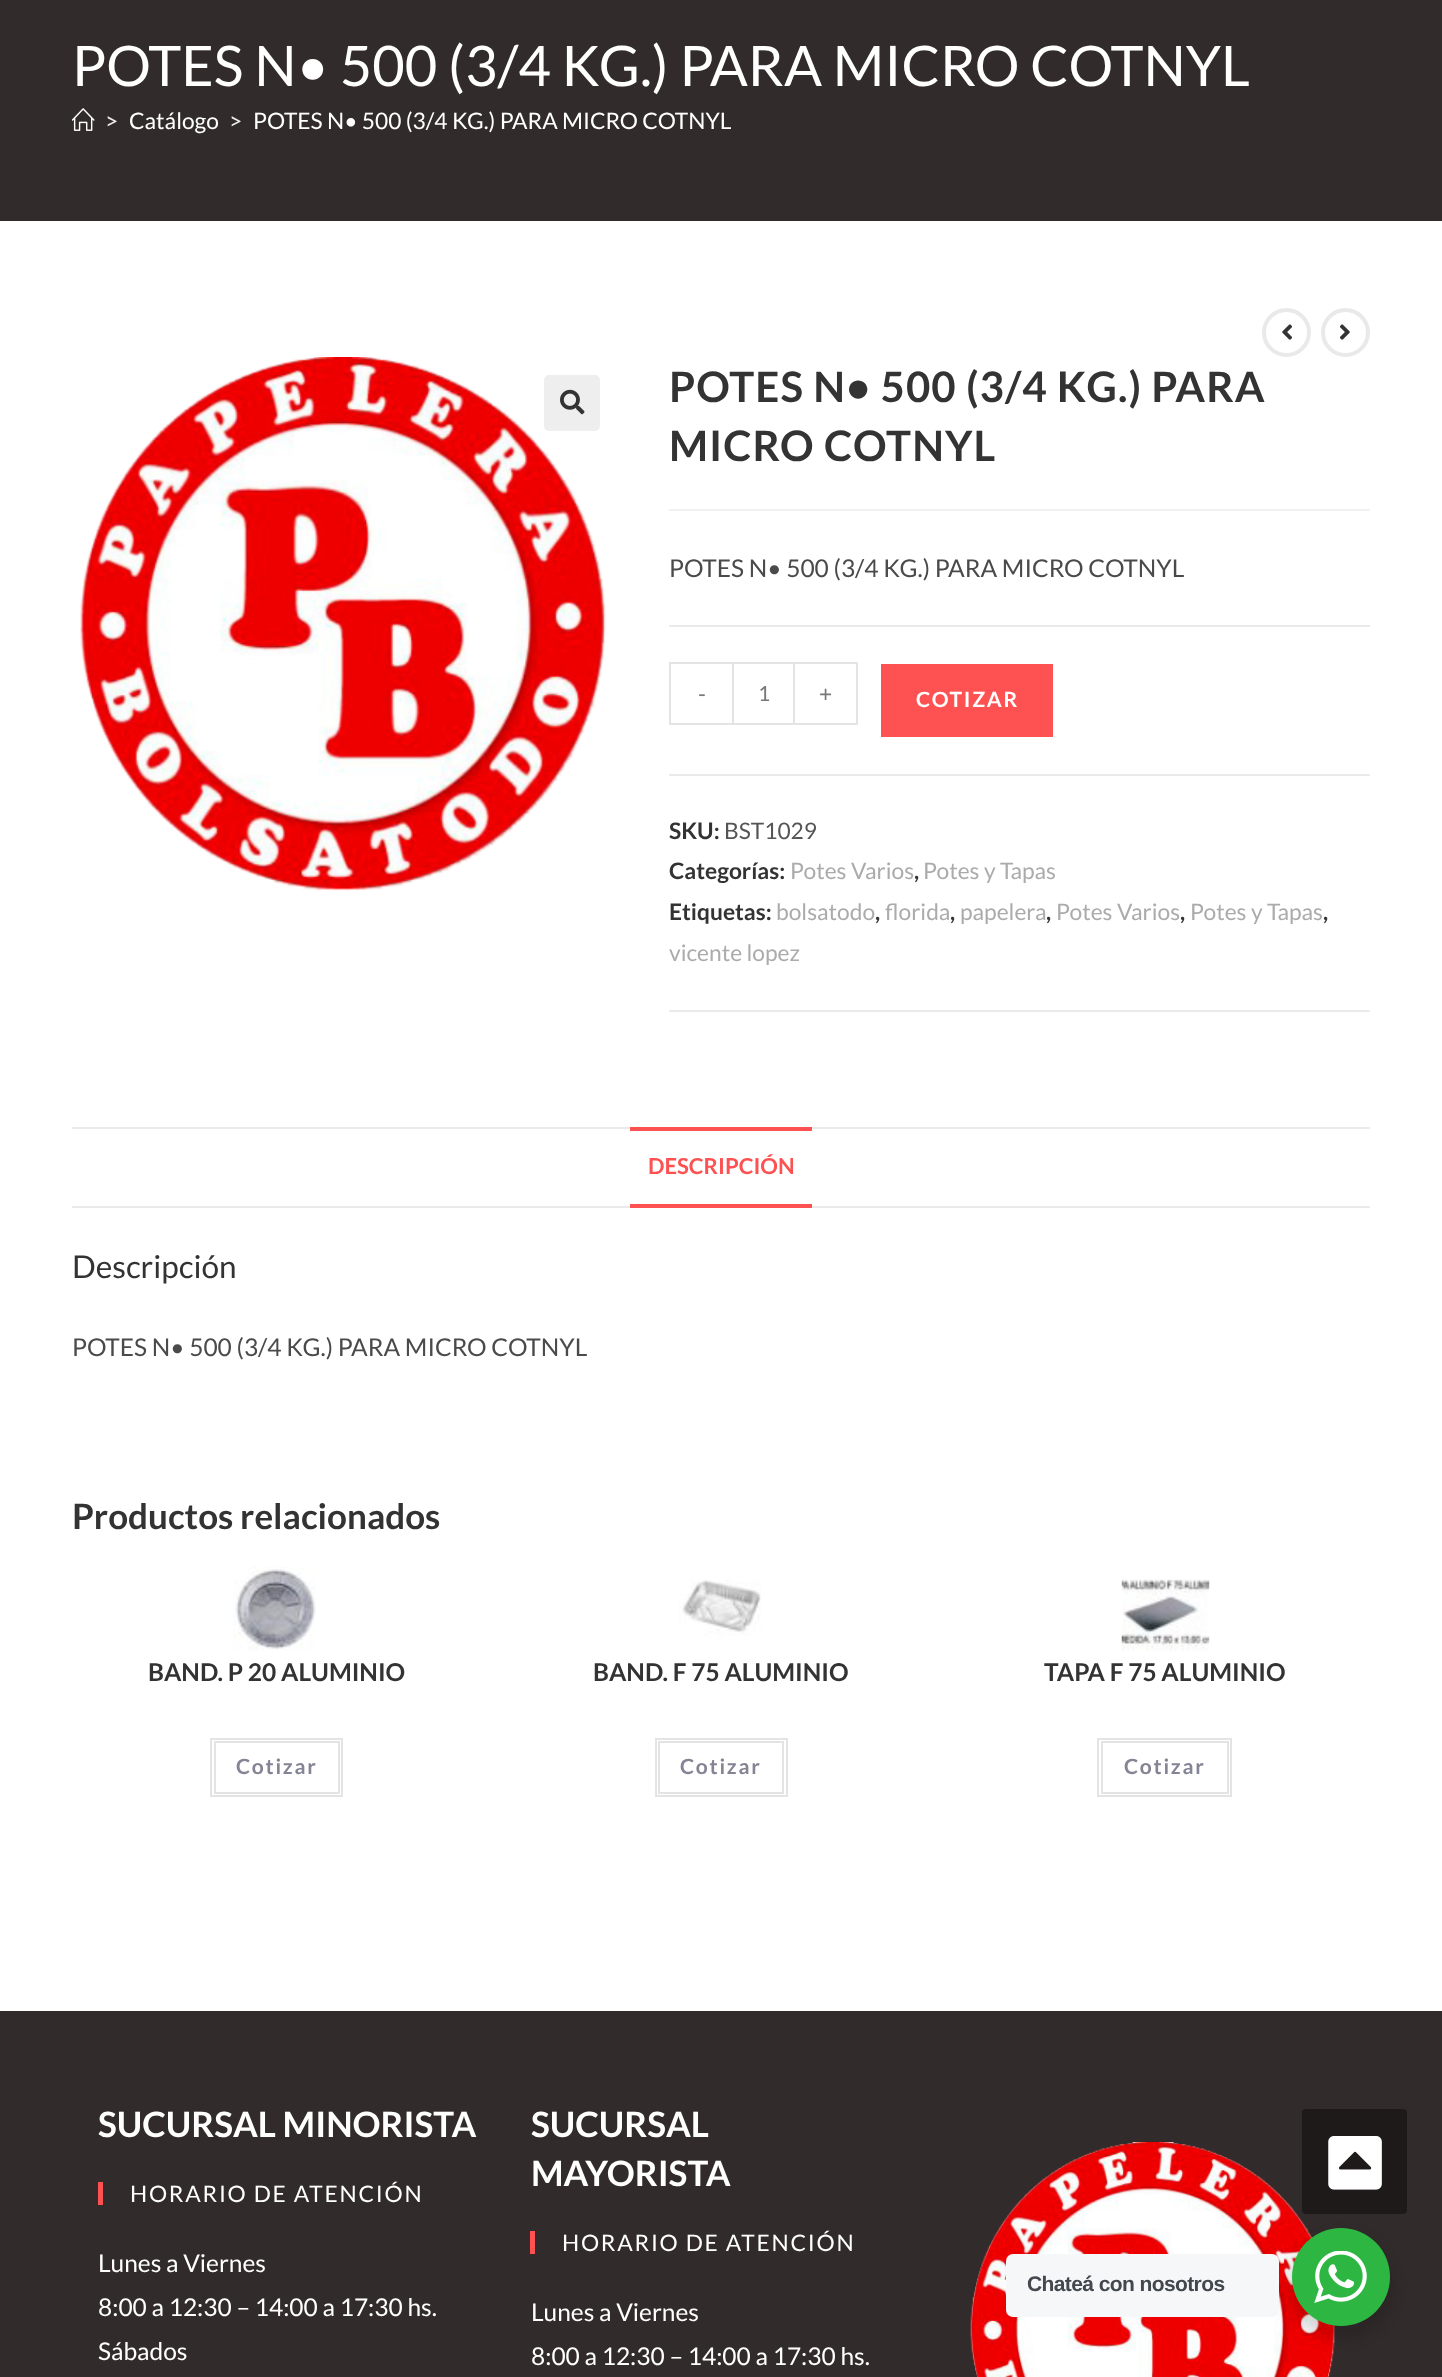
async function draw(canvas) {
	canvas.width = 1442;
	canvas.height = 2377;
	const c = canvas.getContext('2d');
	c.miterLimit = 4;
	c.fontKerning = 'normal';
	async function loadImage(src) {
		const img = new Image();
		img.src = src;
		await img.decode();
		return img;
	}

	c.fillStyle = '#fff';
	c.fillRect(0, 0, 1442, 2377);
	c.fillStyle = '#322b2b';
	c.fillRect(0, 0, 1442, 221);
	c.font = '56px Lato';
	c.fillStyle = '#fff';
	c.fillText('POTES N• 500 (3/4 KG.) PARA MICRO COTNYL', 72, 86);
	c.drawImage(await loadImage('img1.png'), 72, 108, 23, 23);
	c.font = '22.75px Lato';
	c.fillStyle = '#efefef';
	c.fillText('>', 105, 129);
	c.fillStyle = '#fff';
	c.fillText('Catálogo', 129, 129);
	c.fillStyle = '#efefef';
	c.fillText('>', 229, 129);
	c.fillStyle = '#fff';
	c.fillText('POTES N• 500 (3/4 KG.) PARA MICRO COTNYL', 253, 129);
	c.beginPath();
	c.arc(1286.5, 332.5, 22.5, 0, 2 * Math.PI);
	c.strokeStyle = '#e9e9e9';
	c.lineWidth = 4;
	c.stroke();
	c.drawImage(await loadImage('img2.png'), 1282, 324, 10, 16);
	c.beginPath();
	c.arc(1345.5, 332.5, 22.5, 0, 2 * Math.PI);
	c.stroke();
	c.drawImage(await loadImage('img3.png'), 1340, 324, 10, 16);
	c.drawImage(await loadImage('img4.png'), 80, 357, 526, 534);
	c.fillStyle = '#eee';
	c.beginPath();
	c.roundRect(544, 375, 56, 56, 5);
	c.fill();
	c.drawImage(await loadImage('img5.png'), 560, 389, 25, 26);
	c.fillStyle = '#f1f1f1';
	c.fillRect(669, 509, 701, 2);
	c.letterSpacing = '1.05px';
	c.font = 'bold 42px Lato';
	c.fillStyle = '#333';
	c.fillText('POTES N• 500 (3/4 KG.) PARA', 669, 402);
	c.fillText('MICRO COTNYL', 669, 461);
	c.letterSpacing = '0px';
	c.font = '24.5px Lato';
	c.fillStyle = '#4a4a4a';
	c.fillText('POTES N• 500 (3/4 KG.) PARA MICRO COTNYL', 669, 577);
	for (const [x, y, w, h, color] of [
		[669, 625, 701, 2, '#eaeaea'],
		[669, 774, 701, 2, '#eaeaea'],
		[669, 662, 63, 2, '#e4e4e4'],
		[669, 723, 63, 2, '#e4e4e4'],
		[669, 662, 2, 63, '#e4e4e4'],
	]) {
		c.fillStyle = color;
		c.fillRect(x, y, w, h);
	}
	c.font = '22.75px Lato';
	c.fillStyle = '#777';
	c.fillText('-', 698, 702);
	c.strokeStyle = '#e4e4e4';
	c.lineWidth = 2;
	c.strokeRect(733, 663, 61, 61);
	c.font = '21px Lato';
	c.fillText('1', 758, 701);
	for (const [x, y, w, h, color] of [
		[795, 662, 63, 2, '#e4e4e4'],
		[856, 662, 2, 63, '#e4e4e4'],
		[795, 723, 63, 2, '#e4e4e4'],
	]) {
		c.fillStyle = color;
		c.fillRect(x, y, w, h);
	}
	c.font = '22.75px Lato';
	c.fillStyle = '#777';
	c.fillText('+', 819, 702);
	c.fillStyle = '#fe5252';
	c.fillRect(881, 664, 172, 73);
	c.letterSpacing = '1.75px';
	c.font = 'bold 21px Lato';
	c.fillStyle = '#fff';
	c.fillText('COTIZAR', 916, 707);
	c.fillStyle = '#eaeaea';
	c.fillRect(669, 1010, 701, 2);
	c.letterSpacing = '0px';
	c.font = 'bold 22.75px Lato';
	c.fillStyle = '#333';
	c.fillText('SKU:', 669, 839);
	c.font = '22.75px Lato';
	c.fillStyle = '#555';
	c.fillText('BST1029', 724, 839);
	c.font = 'bold 22.75px Lato';
	c.fillStyle = '#333';
	c.fillText('Categorías:', 669, 879);
	c.font = '22.75px Lato';
	c.fillStyle = '#ababab';
	c.fillText('Potes Varios', 790, 879);
	c.font = 'bold 22.75px Lato';
	c.fillStyle = '#333';
	c.fillText(',', 914, 879);
	c.font = '22.75px Lato';
	c.fillStyle = '#ababab';
	c.fillText('Potes y Tapas', 923, 879);
	c.font = 'bold 22.75px Lato';
	c.fillStyle = '#333';
	c.fillText('Etiquetas:', 669, 920);
	c.font = '22.75px Lato';
	c.fillStyle = '#ababab';
	c.fillText('bolsatodo', 776, 920);
	c.font = 'bold 22.75px Lato';
	c.fillStyle = '#333';
	c.fillText(',', 875, 920);
	c.font = '22.75px Lato';
	c.fillStyle = '#ababab';
	c.fillText('florida', 885, 920);
	c.font = 'bold 22.75px Lato';
	c.fillStyle = '#333';
	c.fillText(',', 950, 920);
	c.font = '22.75px Lato';
	c.fillStyle = '#ababab';
	c.fillText('papelera', 960, 920);
	c.font = 'bold 22.75px Lato';
	c.fillStyle = '#333';
	c.fillText(',', 1046, 920);
	c.font = '22.75px Lato';
	c.fillStyle = '#ababab';
	c.fillText('Potes Varios', 1056, 920);
	c.font = 'bold 22.75px Lato';
	c.fillStyle = '#333';
	c.fillText(',', 1180, 920);
	c.font = '22.75px Lato';
	c.fillStyle = '#ababab';
	c.fillText('Potes y Tapas', 1190, 920);
	c.font = 'bold 22.75px Lato';
	c.fillStyle = '#333';
	c.fillText(',', 1323, 920);
	c.font = '22.75px Lato';
	c.fillStyle = '#ababab';
	c.fillText('vicente lopez', 669, 961);
	for (const [x, y, w, h, color] of [
		[72, 1127, 1298, 2, '#eaeaea'],
		[72, 1206, 1298, 2, '#eaeaea'],
		[630, 1127, 182, 4, '#fe5252'],
		[630, 1204, 182, 4, '#fe5252'],
	]) {
		c.fillStyle = color;
		c.fillRect(x, y, w, h);
	}
	c.font = 'bold 22px Lato';
	c.fillText('DESCRIPCIÓN', 648, 1174);
	c.font = '31.5px Lato';
	c.fillStyle = '#333';
	c.fillText('Descripción', 72, 1278);
	c.font = '24.5px Lato';
	c.fillStyle = '#4a4a4a';
	c.fillText('POTES N• 500 (3/4 KG.) PARA MICRO COTNYL', 72, 1356);
	c.font = 'bold 35px Lato';
	c.fillStyle = '#333';
	c.fillText('Productos relacionados', 72, 1529);
	c.drawImage(await loadImage('img6.png'), 233, 1566, 83, 85);
	c.font = 'bold 24.5px Lato';
	c.fillText('BAND. P 20 ALUMINIO', 148, 1681);
	c.strokeRect(211, 1739, 131, 57);
	c.strokeRect(215, 1742, 124, 51);
	c.letterSpacing = '1.75px';
	c.font = 'bold 21px Lato';
	c.fillStyle = '#848494';
	c.fillText('Cotizar', 236, 1774);
	c.drawImage(await loadImage('img7.png'), 679, 1580, 82, 56);
	c.letterSpacing = '0px';
	c.font = 'bold 24.5px Lato';
	c.fillStyle = '#333';
	c.fillText('BAND. F 75 ALUMINIO', 593, 1681);
	c.strokeRect(656, 1739, 131, 57);
	c.strokeRect(659, 1742, 124, 51);
	c.letterSpacing = '1.75px';
	c.font = 'bold 21px Lato';
	c.fillStyle = '#848494';
	c.fillText('Cotizar', 680, 1774);
	c.drawImage(await loadImage('img8.png'), 1121, 1579, 89, 72);
	c.letterSpacing = '0px';
	c.font = 'bold 24.5px Lato';
	c.fillStyle = '#333';
	c.fillText('TAPA F 75 ALUMINIO', 1044, 1681);
	c.strokeRect(1098, 1739, 133, 57);
	c.strokeRect(1102, 1742, 126, 51);
	c.letterSpacing = '1.75px';
	c.font = 'bold 21px Lato';
	c.fillStyle = '#848494';
	c.fillText('Cotizar', 1124, 1774);
	c.fillStyle = '#322b2b';
	c.fillRect(0, 2011, 1442, 366);
	c.letterSpacing = '0px';
	c.font = 'bold 35px Lato';
	c.fillStyle = '#fff';
	c.fillText('SUCURSAL MINORISTA', 98, 2137);
	c.fillStyle = '#fe5252';
	c.fillRect(98, 2182, 5, 23);
	c.letterSpacing = '1.75px';
	c.font = '22.75px Lato';
	c.fillStyle = '#fff';
	c.fillText('HORARIO DE ATENCIÓN', 130, 2202);
	c.letterSpacing = '0px';
	c.font = '24.5px Lato';
	for (const [text, x, y] of [
		['Lunes a Viernes', 98, 2272],
		['8:00 a 12:30 – 14:00 a 17:30 hs.', 98, 2316],
		['Sábados', 98, 2360],
	]) {
		c.fillText(text, x, y);
	}
	c.font = 'bold 35px Lato';
	c.fillText('SUCURSAL', 531, 2137);
	c.fillText('MAYORISTA', 531, 2186);
	c.fillStyle = '#fe5252';
	c.fillRect(530, 2231, 5, 23);
	c.letterSpacing = '1.75px';
	c.font = '22.75px Lato';
	c.fillStyle = '#fff';
	c.fillText('HORARIO DE ATENCIÓN', 562, 2251);
	c.letterSpacing = '0px';
	c.font = '24.5px Lato';
	c.fillText('Lunes a Viernes', 531, 2321);
	c.fillText('8:00 a 12:30 – 14:00 a 17:30 hs.', 531, 2365);
	c.drawImage(await loadImage('img9.png'), 970, 2142, 366, 235);
	c.fillStyle = '#1e1a1a';
	c.beginPath();
	c.roundRect(1302, 2109, 105, 105, 4);
	c.fill();
	c.drawImage(await loadImage('img10.png'), 1328, 2136, 54, 54);
	c.fillStyle = '#00000024';
	c.filter = 'blur(7px)';
	c.beginPath();
	c.roundRect(1288, 2235, 105, 105, 52.5);
	c.fill();
	c.filter = 'none';
	c.fillStyle = '#f5f7f9';
	c.beginPath();
	c.roundRect(1006, 2254, 273, 63, 7);
	c.fill();
	c.letterSpacing = '-0.6px';
	c.font = 'bold 21px Liberation Sans';
	c.fillStyle = '#43474e';
	c.fillText('Chateá con nosotros', 1027, 2291);
	c.fillStyle = '#2db742';
	c.beginPath();
	c.arc(1341, 2277, 49, 0, 2 * Math.PI);
	c.fill();
	c.drawImage(await loadImage('img11.png'), 1314, 2251, 53, 52);
}

draw(document.querySelector('canvas'));
